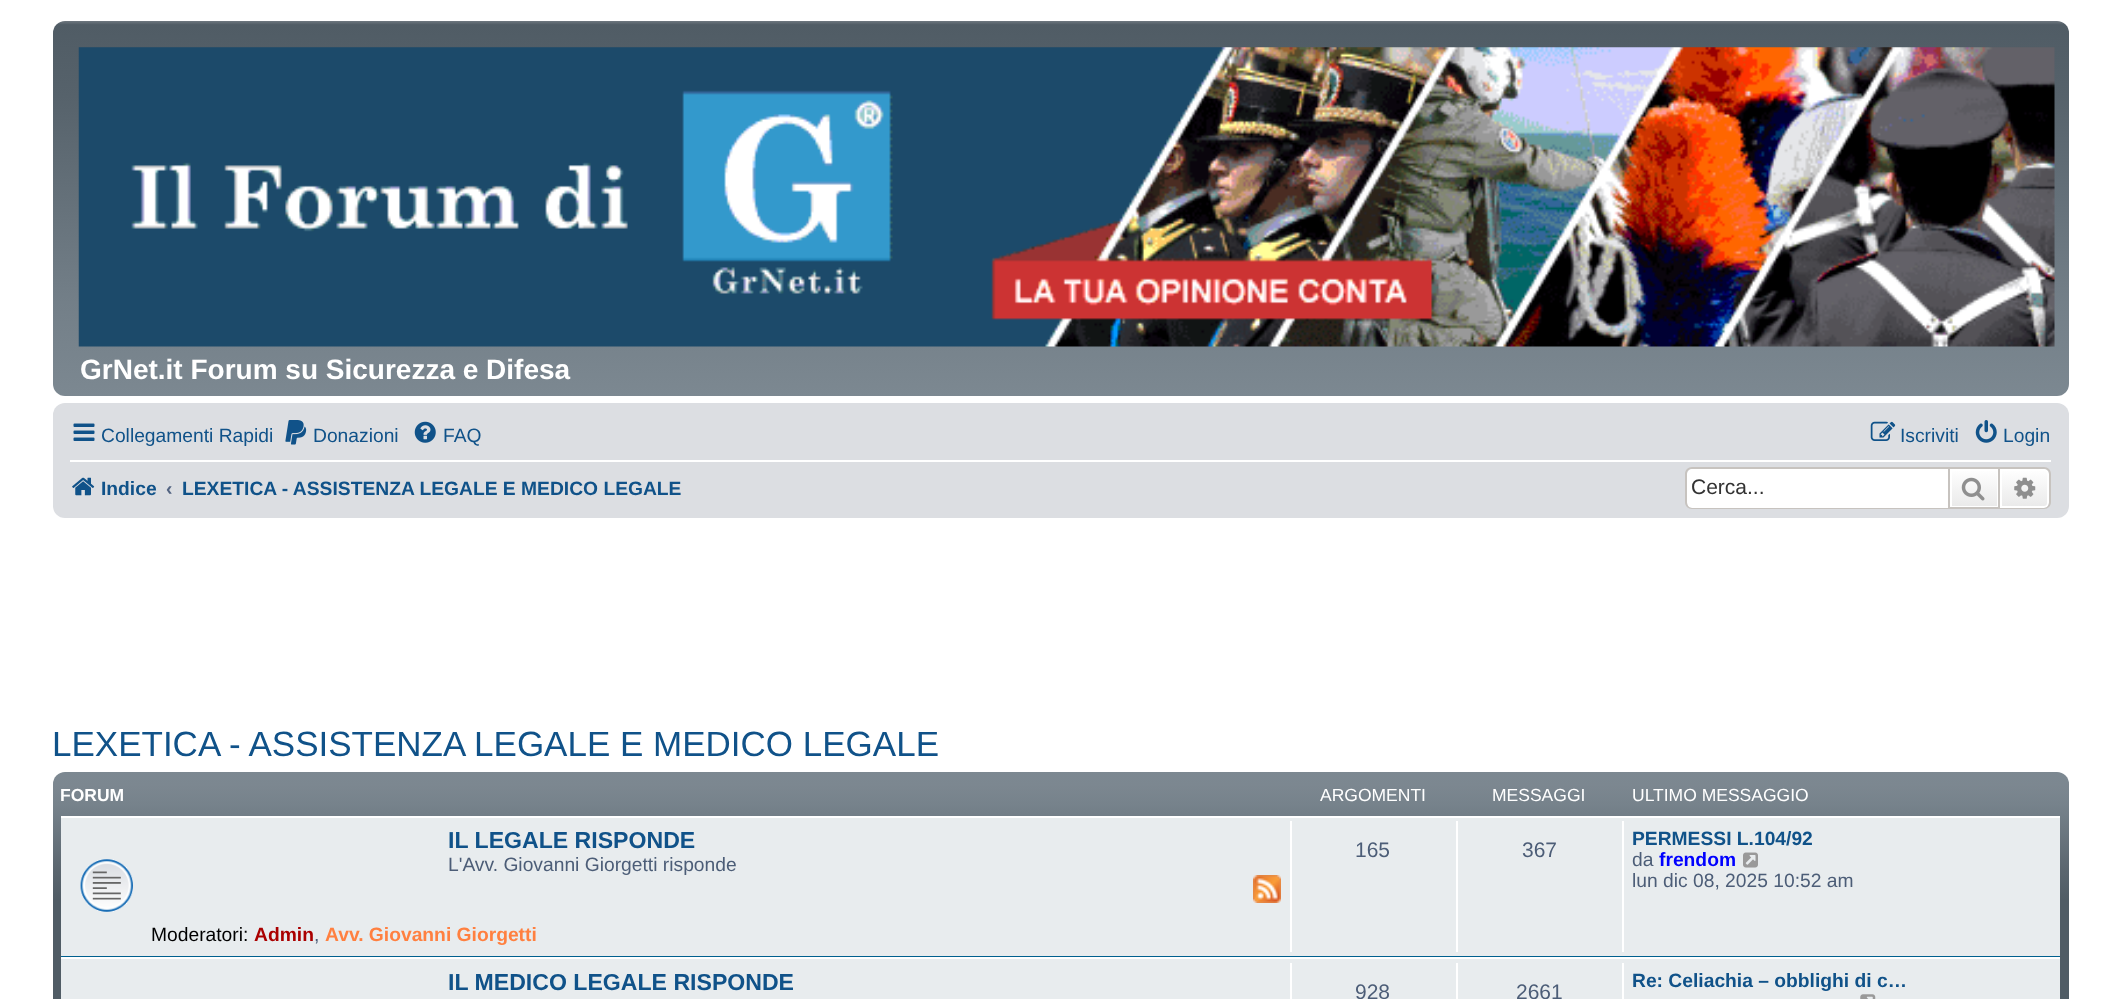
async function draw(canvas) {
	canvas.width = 2118;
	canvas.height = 999;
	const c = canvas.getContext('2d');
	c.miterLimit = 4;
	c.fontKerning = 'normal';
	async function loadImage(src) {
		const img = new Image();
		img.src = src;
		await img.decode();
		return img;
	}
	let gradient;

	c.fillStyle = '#fff';
	c.fillRect(0, 0, 2118, 999);
	gradient = c.createLinearGradient(1061, 21, 1061, 396);
	gradient.addColorStop(0, '#6e777f');
	gradient.addColorStop(0.01, '#505c65');
	gradient.addColorStop(0.2, '#56626b');
	gradient.addColorStop(0.75, '#737f88');
	gradient.addColorStop(1, '#7c8891');
	c.fillStyle = gradient;
	c.beginPath();
	c.roundRect(53, 21, 2016, 375, 12);
	c.fill();
	c.drawImage(await loadImage('img1.png'), 78, 47, 1977, 300);
	c.font = 'bold 28px Liberation Sans';
	c.fillStyle = '#fff';
	c.fillText('GrNet.it Forum su Sicurezza e Difesa', 80, 379);
	c.fillStyle = '#dcdee2';
	c.beginPath();
	c.roundRect(53, 403, 2016, 115, 12);
	c.fill();
	c.drawImage(await loadImage('img2.png'), 73, 423, 22, 18);
	c.font = '19.25px Liberation Sans';
	c.fillStyle = '#105289';
	c.fillText('Collegamenti Rapidi', 101, 442);
	c.drawImage(await loadImage('img3.png'), 285, 420, 22, 25);
	c.fillText('Donazioni', 313, 442);
	c.drawImage(await loadImage('img4.png'), 414, 421, 22, 22);
	c.fillText('FAQ', 443, 442);
	c.drawImage(await loadImage('img5.png'), 1870, 421, 26, 20);
	c.fillText('Iscriviti', 1900, 442);
	c.drawImage(await loadImage('img6.png'), 1975, 420, 22, 23);
	c.fillText('Login', 2003, 442);
	c.fillStyle = '#fff';
	c.fillRect(70, 460, 1981, 2);
	c.drawImage(await loadImage('img7.png'), 72, 477, 23, 19);
	c.font = 'bold 19.25px Liberation Sans';
	c.fillStyle = '#105289';
	c.fillText('Indice', 101, 495);
	c.fillStyle = '#536482';
	c.fillText('‹', 166, 495);
	c.fillStyle = '#105289';
	c.fillText('LEXETICA - ASSISTENZA LEGALE E MEDICO LEGALE', 182, 495);
	c.fillStyle = '#fff';
	c.beginPath();
	c.roundRect(1687, 469, 261, 39, [5, 0, 0, 5]);
	c.fill();
	c.fillStyle = '#c7c3bf';
	c.beginPath();
	c.moveTo(1692, 467);
	c.lineTo(1948, 467);
	c.lineTo(1948, 509);
	c.lineTo(1692, 509);
	c.bezierCurveTo(1688, 509, 1685, 506, 1685, 502);
	c.lineTo(1685, 474);
	c.bezierCurveTo(1685, 470, 1688, 467, 1692, 467);
	c.closePath();
	c.moveTo(1692, 469);
	c.lineTo(1948, 469);
	c.lineTo(1948, 508);
	c.lineTo(1692, 508);
	c.bezierCurveTo(1689, 508, 1687, 505, 1687, 502);
	c.lineTo(1687, 474);
	c.bezierCurveTo(1687, 471, 1689, 469, 1692, 469);
	c.closePath();
	c.fill('evenodd');
	c.font = '21px Liberation Sans';
	c.fillStyle = '#333';
	c.fillText('Cerca...', 1691, 494);
	gradient = c.createLinearGradient(1974, 469, 1974, 508);
	gradient.addColorStop(0, '#fff');
	gradient.addColorStop(1, '#e9e9e9');
	c.fillStyle = gradient;
	c.fillRect(1952, 471, 45, 35);
	c.strokeStyle = '#fff';
	c.lineWidth = 2;
	c.strokeRect(1951, 470, 47, 37);
	c.strokeStyle = '#c7c3bf';
	c.strokeRect(1949, 468, 50, 40);
	c.drawImage(await loadImage('img8.png'), 1961, 477, 24, 24);
	gradient = c.createLinearGradient(2025, 469, 2025, 508);
	gradient.addColorStop(0, '#fff');
	gradient.addColorStop(1, '#e9e9e9');
	c.fillStyle = gradient;
	c.beginPath();
	c.roundRect(2001, 470, 47, 37, [0, 4, 4, 0]);
	c.fill();
	c.strokeStyle = '#fff';
	c.stroke();
	c.fillStyle = '#c7c3bf';
	c.beginPath();
	c.moveTo(2000, 467);
	c.lineTo(2044, 467);
	c.bezierCurveTo(2048, 467, 2051, 470, 2051, 474);
	c.lineTo(2051, 502);
	c.bezierCurveTo(2051, 506, 2048, 509, 2044, 509);
	c.lineTo(2000, 509);
	c.closePath();
	c.moveTo(2000, 469);
	c.lineTo(2044, 469);
	c.bezierCurveTo(2047, 469, 2049, 471, 2049, 474);
	c.lineTo(2049, 502);
	c.bezierCurveTo(2049, 505, 2047, 508, 2044, 508);
	c.lineTo(2000, 508);
	c.closePath();
	c.fill('evenodd');
	c.drawImage(await loadImage('img9.png'), 2014, 477, 22, 22);
	c.font = '35px Liberation Sans';
	c.fillStyle = '#105289';
	c.fillText('LEXETICA - ASSISTENZA LEGALE E MEDICO LEGALE', 52, 756);
	gradient = c.createLinearGradient(1061, 772, 1061, 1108);
	gradient.addColorStop(0, '#7c8891');
	gradient.addColorStop(0.04, '#7c8790');
	gradient.addColorStop(0.1, '#76828b');
	gradient.addColorStop(0.29, '#5b666f');
	gradient.addColorStop(0.38, '#505c65');
	gradient.addColorStop(1, '#505c65');
	c.fillStyle = gradient;
	c.beginPath();
	c.roundRect(53, 772, 2016, 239, 12);
	c.fill();
	c.font = 'bold 17.5px Liberation Sans';
	c.fillStyle = '#fff';
	c.fillText('FORUM', 60, 801);
	c.font = '17.5px Liberation Sans';
	for (const [text, x, y] of [
		['ARGOMENTI', 1320, 801],
		['MESSAGGI', 1492, 801],
		['ULTIMO MESSAGGIO', 1632, 801],
	]) {
		c.fillText(text, x, y);
	}
	for (const [x, y, w, h, color] of [
		[61, 818, 1999, 138, '#e8ecee'],
		[61, 816, 1999, 2, '#fff'],
		[61, 956, 1999, 1, '#00608f'],
	]) {
		c.fillStyle = color;
		c.fillRect(x, y, w, h);
	}
	c.drawImage(await loadImage('img10.png'), 80, 859, 53, 53);
	c.font = 'bold 23.1px Liberation Sans';
	c.fillStyle = '#105289';
	c.fillText('IL LEGALE RISPONDE', 448, 848);
	c.font = '19.25px Liberation Sans';
	c.fillStyle = '#4c5d77';
	c.fillText('L\'Avv. Giovanni Giorgetti risponde', 448, 871);
	c.drawImage(await loadImage('img11.png'), 1253, 875, 28, 28);
	c.fillStyle = '#000';
	c.fillText('Moderatori:', 151, 941);
	c.font = 'bold 19.25px Liberation Sans';
	c.fillStyle = '#a00';
	c.fillText('Admin', 254, 941);
	c.font = '19.25px Liberation Sans';
	c.fillStyle = '#4c5d77';
	c.fillText(',', 314, 941);
	c.font = 'bold 19.25px Liberation Sans';
	c.fillStyle = '#ff8040';
	c.fillText('Avv. Giovanni Giorgetti', 325, 941);
	c.fillStyle = '#fff';
	c.fillRect(1290, 821, 2, 131);
	c.font = '21px Liberation Sans';
	c.fillStyle = '#4c5d77';
	c.fillText('165', 1355, 857);
	c.fillStyle = '#fff';
	c.fillRect(1456, 821, 2, 131);
	c.fillStyle = '#4c5d77';
	c.fillText('367', 1522, 857);
	c.fillStyle = '#fff';
	c.fillRect(1622, 821, 2, 131);
	c.font = 'bold 19.25px Liberation Sans';
	c.fillStyle = '#105289';
	c.fillText('PERMESSI L.104/92', 1632, 845);
	c.font = '19.25px Liberation Sans';
	c.fillStyle = '#4c5d77';
	c.fillText('da', 1632, 866);
	c.font = 'bold 19.25px Liberation Sans';
	c.fillStyle = '#00f';
	c.fillText('frendom', 1659, 866);
	c.drawImage(await loadImage('img12.png'), 1743, 852, 15, 16);
	c.font = '19.25px Liberation Sans';
	c.fillStyle = '#4c5d77';
	c.fillText('lun dic 08, 2025 10:52 am', 1632, 887);
	c.fillStyle = '#e8ecee';
	c.fillRect(61, 959, 1999, 40);
	c.fillStyle = '#fff';
	c.fillRect(61, 957, 1999, 2);
	c.font = 'bold 23.1px Liberation Sans';
	c.fillStyle = '#105289';
	c.fillText('IL MEDICO LEGALE RISPONDE', 448, 990);
	c.fillStyle = '#fff';
	c.fillRect(1290, 963, 2, 36);
	c.font = '21px Liberation Sans';
	c.fillStyle = '#4c5d77';
	c.fillText('928', 1355, 999);
	c.fillStyle = '#fff';
	c.fillRect(1456, 963, 2, 36);
	c.fillStyle = '#4c5d77';
	c.fillText('2661', 1516, 999);
	c.fillStyle = '#fff';
	c.fillRect(1622, 963, 2, 36);
	c.font = 'bold 19.25px Liberation Sans';
	c.fillStyle = '#105289';
	c.fillText('Re: Celiachia – obblighi di c…', 1632, 987);
	c.drawImage(await loadImage('img13.png'), 1860, 994, 16, 5);
}

draw(document.querySelector('canvas'));
